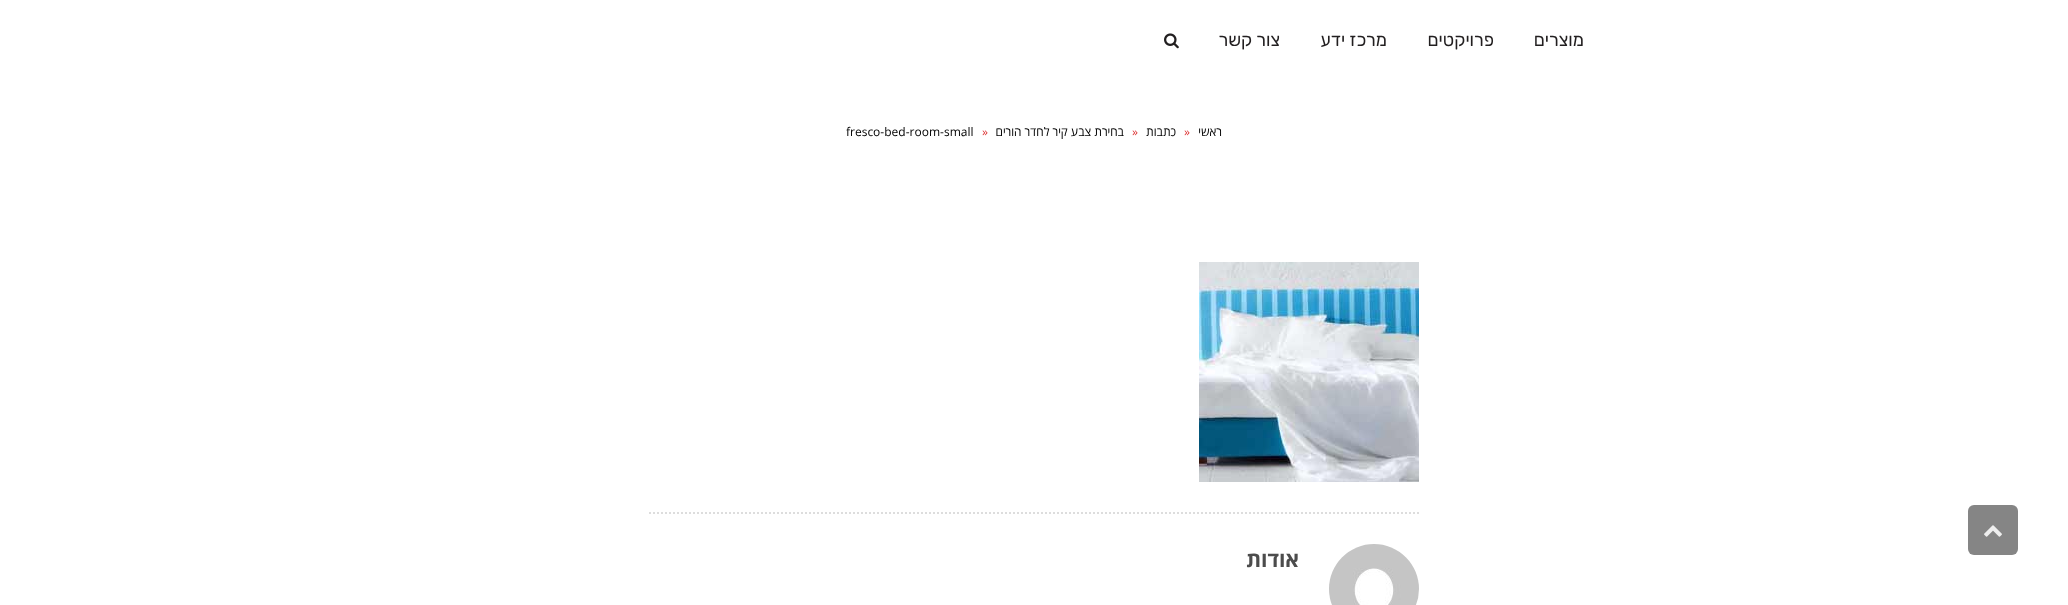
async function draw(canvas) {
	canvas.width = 2068;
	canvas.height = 605;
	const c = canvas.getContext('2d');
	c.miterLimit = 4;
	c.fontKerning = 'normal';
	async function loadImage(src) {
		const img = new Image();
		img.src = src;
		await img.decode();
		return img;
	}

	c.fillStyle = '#fff';
	c.fillRect(0, 0, 2068, 605);
	c.fillStyle = '#858585';
	c.beginPath();
	c.roundRect(1968, 505, 50, 50, 6);
	c.fill();
	c.drawImage(await loadImage('img1.png'), 1984, 525, 18, 12);
	c.direction = 'rtl';
	c.font = '18px Rubik';
	c.fillStyle = '#221f20';
	for (const [text, x, y] of [
		['מוצרים', 1584, 46],
		['פרויקטים', 1494, 46],
		['מרכז ידע', 1387, 46],
		['צור קשר', 1280, 46],
	]) {
		c.fillText(text, x, y);
	}
	c.drawImage(await loadImage('img2.png'), 1164, 33, 15, 16);
	c.font = '12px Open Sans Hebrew';
	c.fillStyle = '#000';
	c.fillText('ראשי', 1222, 136);
	c.direction = 'ltr';
	c.fillStyle = '#d33';
	c.fillText('»', 1184, 136);
	c.direction = 'rtl';
	c.fillStyle = '#000';
	c.fillText('כתבות', 1176, 136);
	c.direction = 'ltr';
	c.fillStyle = '#d33';
	c.fillText('»', 1132, 136);
	c.direction = 'rtl';
	c.fillStyle = '#000';
	c.fillText('בחירת צבע קיר לחדר הורים', 1124, 136);
	c.direction = 'ltr';
	c.fillStyle = '#d33';
	c.fillText('»', 982, 136);
	c.fillStyle = '#000';
	c.fillText('fresco-bed-room-small', 846, 136);
	c.drawImage(await loadImage('img3.png'), 1199, 262, 220, 220);
	c.beginPath();
	c.moveTo(649, 513);
	c.lineTo(1419, 513);
	c.strokeStyle = '#ddd';
	c.lineWidth = 2;
	c.setLineDash([2, 2]);
	c.stroke();
	c.drawImage(await loadImage('img4.png'), 1329, 544, 90, 61);
	c.direction = 'rtl';
	c.font = 'bold 21px Open Sans Hebrew';
	c.fillStyle = '#4c4c4c';
	c.fillText('אודות', 1299, 567);
}

draw(document.querySelector('canvas'));
